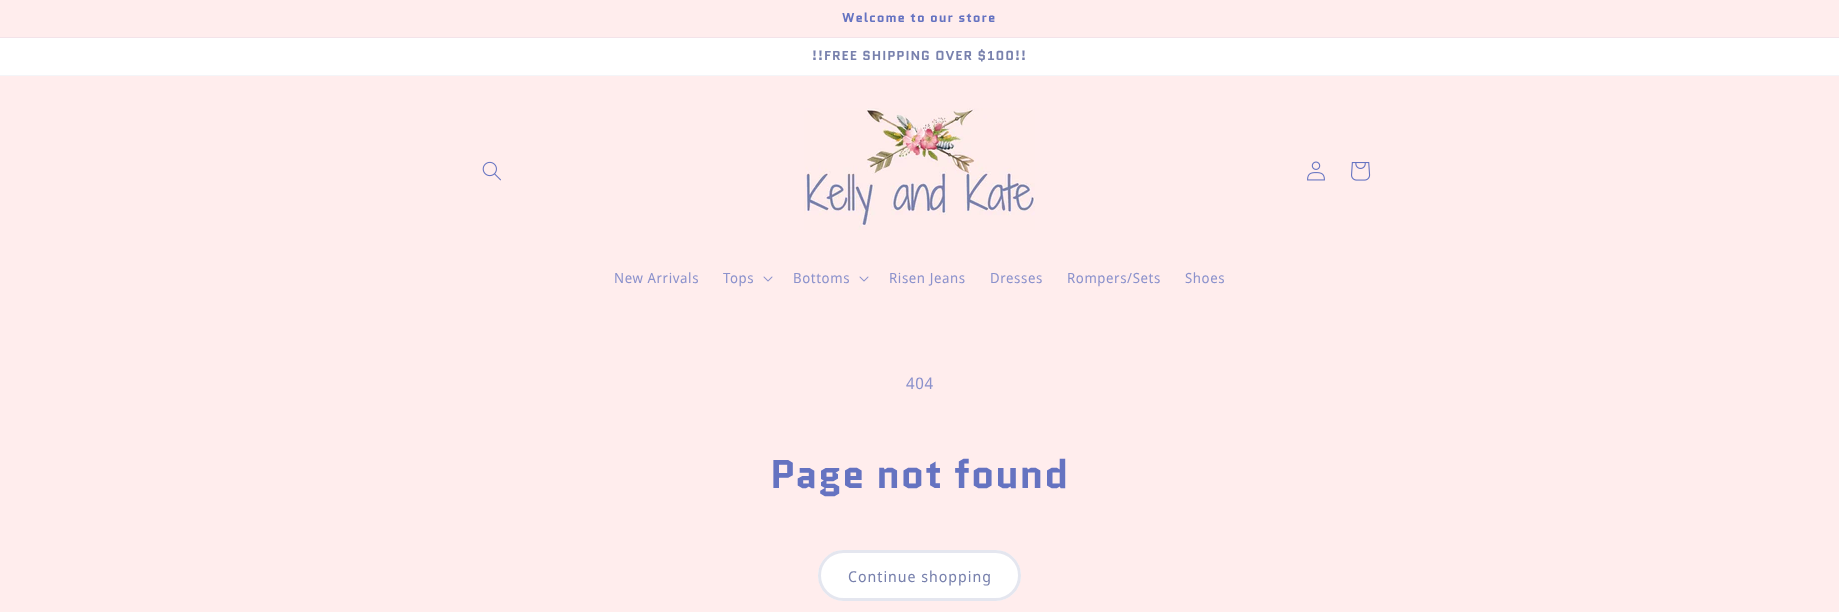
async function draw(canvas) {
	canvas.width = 1839;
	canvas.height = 612;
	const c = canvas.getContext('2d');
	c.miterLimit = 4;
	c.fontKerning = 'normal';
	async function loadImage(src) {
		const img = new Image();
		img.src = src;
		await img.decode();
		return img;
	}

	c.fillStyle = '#ffeded';
	c.fillRect(0, 0, 1839, 612);
	c.fillStyle = '#f3e3e9';
	c.fillRect(0, 37, 1839, 1);
	c.letterSpacing = '1px';
	c.font = 'bold 13px Quantico';
	c.fillStyle = '#6573c1';
	c.fillText('Welcome to our store', 842, 22);
	c.fillStyle = '#fff';
	c.fillRect(0, 38, 1839, 37);
	c.fillStyle = '#f4f5f8';
	c.fillRect(0, 75, 1839, 1);
	c.fillStyle = '#7881ad';
	c.fillText('!!FREE SHIPPING OVER $100!!', 812, 60);
	c.drawImage(await loadImage('img1.png'), 482, 161, 19, 20);
	c.drawImage(await loadImage('img2.png'), 804, 108, 231, 122);
	c.drawImage(await loadImage('img3.png'), 1307, 161, 18, 20);
	c.drawImage(await loadImage('img4.png'), 1351, 162, 20, 19);
	c.letterSpacing = '0.6px';
	c.font = '14px Noto Sans Display';
	c.fillStyle = '#8c92cc';
	c.fillText('New Arrivals', 614, 283);
	c.fillText('Tops', 723, 283);
	c.drawImage(await loadImage('img5.png'), 763, 276, 10, 6);
	c.fillText('Bottoms', 793, 283);
	c.drawImage(await loadImage('img5.png'), 859, 276, 10, 6);
	for (const [text, x, y] of [
		['Risen Jeans', 889, 283],
		['Dresses', 990, 283],
		['Rompers/Sets', 1067, 283],
		['Shoes', 1185, 283],
	]) {
		c.fillText(text, x, y);
	}
	c.font = '16px Noto Sans Display';
	c.fillText('404', 906, 389);
	c.font = 'bold 40px Quantico';
	c.fillStyle = '#6573c1';
	c.fillText('Page not found', 770, 488);
	c.fillStyle = '#fff';
	c.beginPath();
	c.roundRect(818, 550, 203, 51, 25.5);
	c.fill();
	c.beginPath();
	c.roundRect(819.5, 551.5, 200, 48, 24);
	c.strokeStyle = '#fff';
	c.lineWidth = 3;
	c.stroke();
	c.beginPath();
	c.roundRect(819.5, 551.5, 200, 48, 24);
	c.strokeStyle = '#7881ad33';
	c.stroke();
	c.letterSpacing = '1px';
	c.font = '15px Noto Sans Display';
	c.fillStyle = '#7881ad';
	c.fillText('Continue shopping', 848, 582);
}

draw(document.querySelector('canvas'));
